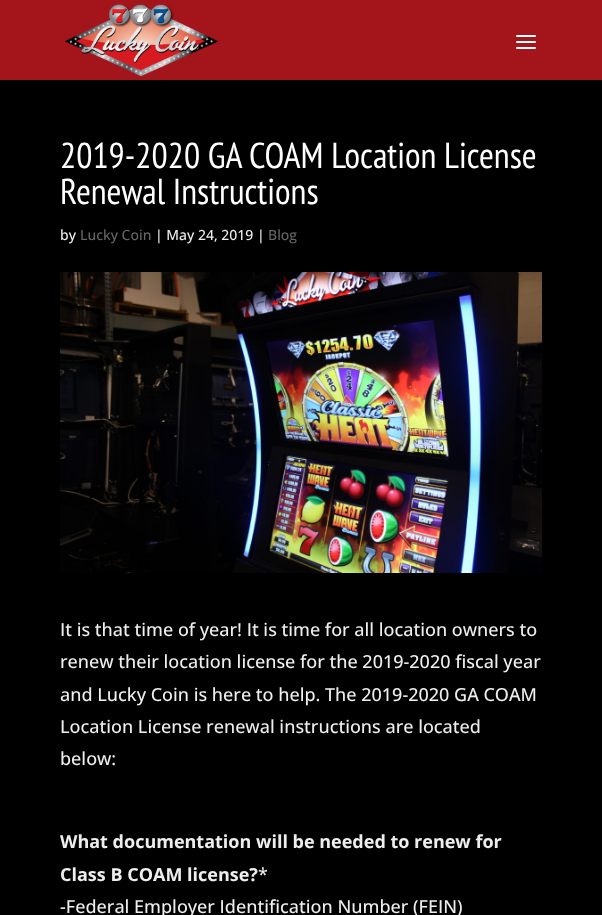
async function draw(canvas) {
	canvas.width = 602;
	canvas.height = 915;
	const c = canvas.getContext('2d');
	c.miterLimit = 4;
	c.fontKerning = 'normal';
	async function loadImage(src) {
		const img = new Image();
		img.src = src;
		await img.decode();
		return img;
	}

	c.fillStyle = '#000';
	c.fillRect(0, 0, 602, 915);
	c.fillStyle = '#a3141b';
	c.fillRect(0, 0, 602, 80);
	c.drawImage(await loadImage('img1.png'), 65, 4, 153, 72);
	c.drawImage(await loadImage('img2.png'), 516, 35, 20, 14);
	c.font = '36px PT Sans Narrow';
	c.fillStyle = '#fff';
	c.fillText('2019-2020 GA COAM Location License', 60, 168);
	c.fillText('Renewal Instructions', 60, 204);
	c.font = '500 14px Open Sans';
	c.fillStyle = '#eee';
	c.fillText('by', 60, 240);
	c.fillStyle = '#666';
	c.fillText('Lucky Coin', 80, 240);
	c.fillStyle = '#eee';
	c.fillText('| May 24, 2019 |', 155, 240);
	c.fillStyle = '#666';
	c.fillText('Blog', 268, 240);
	c.drawImage(await loadImage('img3.png'), 60, 272, 482, 301);
	c.font = '500 18px Open Sans';
	c.fillStyle = '#eee';
	for (const [text, x, y] of [
		['It is that time of year! It is time for all location owners to', 60, 636],
		['renew their location license for the 2019-2020 fiscal year', 60, 668],
		['and Lucky Coin is here to help. The 2019-2020 GA COAM', 60, 701],
		['Location License renewal instructions are located', 60, 733],
		['below:', 60, 765],
	]) {
		c.fillText(text, x, y);
	}
	c.font = 'bold 18px Open Sans';
	c.fillText('What documentation will be needed to renew for', 60, 848);
	c.fillText('Class B COAM license?', 60, 881);
	c.font = '500 18px Open Sans';
	c.fillText('*', 258, 881);
	c.fillText('-Federal Employer Identification Number (FEIN)', 60, 913);
}

draw(document.querySelector('canvas'));
